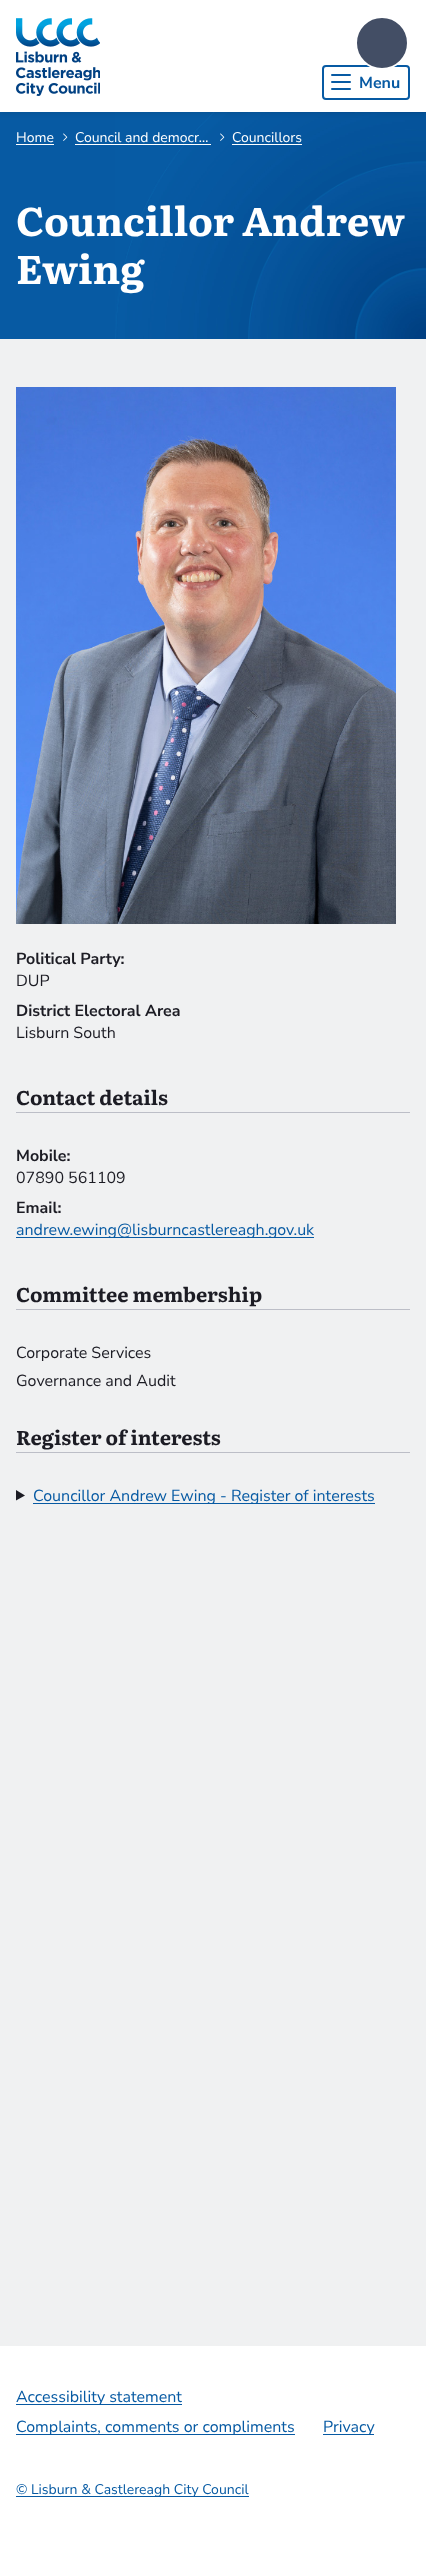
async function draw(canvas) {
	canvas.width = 426;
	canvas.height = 2556;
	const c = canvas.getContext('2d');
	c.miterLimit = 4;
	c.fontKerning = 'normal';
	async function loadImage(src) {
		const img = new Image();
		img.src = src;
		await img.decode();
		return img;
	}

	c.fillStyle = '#f0f1f2';
	c.fillRect(0, 0, 426, 2556);
	c.fillStyle = '#075aa3';
	c.fillRect(0, 112, 115, 227);
	c.drawImage(await loadImage('img2.png'), 115, 112, 311, 227);
	c.fillStyle = '#00000012';
	c.filter = 'blur(2px)';
	c.beginPath();
	c.rect(0, 2, 426, 112);
	c.fill();
	c.filter = 'none';
	c.fillStyle = '#fff';
	c.fillRect(0, 0, 426, 112);
	c.beginPath();
	c.roundRect(323, 66, 86, 33, 3);
	c.strokeStyle = '#075aa3';
	c.lineWidth = 2;
	c.stroke();
	c.fillStyle = '#434e65';
	c.beginPath();
	c.arc(382, 43, 26, 0, 2 * Math.PI);
	c.fill();
	c.strokeStyle = '#fff';
	c.stroke();
	c.drawImage(await loadImage('img1.png'), 16, 18, 84, 78);
	c.fillStyle = '#075aa3';
	c.beginPath();
	c.roundRect(331, 74, 20, 2, 1);
	c.fill();
	c.beginPath();
	c.roundRect(331, 81, 20, 2, 1);
	c.fill();
	c.beginPath();
	c.roundRect(331, 88, 20, 2, 1);
	c.fill();
	c.font = 'bold 16px Nunito Sans';
	c.fillText('Menu', 359, 88);
	c.font = '14px Nunito Sans';
	c.fillStyle = '#fff';
	c.fillText('Home', 16, 142);
	c.fillRect(16, 144, 38, 1);
	c.drawImage(await loadImage('img3.png'), 63, 133, 5, 8);
	c.fillText('Council and democr…', 75, 142);
	c.fillRect(75, 144, 136, 1);
	c.drawImage(await loadImage('img4.png'), 220, 133, 5, 8);
	c.fillText('Councillors', 232, 142);
	c.fillRect(232, 144, 70, 1);
	c.font = 'bold 40px Literata';
	c.fillText('Councillor Andrew', 16, 236);
	c.fillText('Ewing', 16, 284);
	c.drawImage(await loadImage('img5.png'), 16, 387, 380, 537);
	c.font = 'bold 16px Nunito Sans';
	c.fillStyle = '#1c1c24';
	c.fillText('Political Party:', 16, 964);
	c.font = '16px Nunito Sans';
	c.fillText('DUP', 16, 986);
	c.font = 'bold 16px Nunito Sans';
	c.fillText('District Electoral Area', 16, 1016);
	c.font = '16px Nunito Sans';
	c.fillText('Lisburn South', 16, 1038);
	c.fillStyle = '#bcbec7';
	c.fillRect(16, 1112, 394, 1);
	c.font = 'bold 20px Literata';
	c.fillStyle = '#1c1c24';
	c.fillText('Contact details', 16, 1105);
	c.font = 'bold 16px Nunito Sans';
	c.fillText('Mobile:', 16, 1161);
	c.font = '16px Nunito Sans';
	c.fillText('07890 561109', 16, 1183);
	c.font = 'bold 16px Nunito Sans';
	c.fillText('Email:', 16, 1213);
	c.fillStyle = '#075aa3';
	c.fillRect(16, 1237, 298, 1);
	c.font = '16px Nunito Sans';
	c.fillText('andrew.ewing@lisburncastlereagh.gov.uk', 16, 1235);
	c.fillStyle = '#bcbec7';
	c.fillRect(16, 1309, 394, 1);
	c.font = 'bold 20px Literata';
	c.fillStyle = '#1c1c24';
	c.fillText('Committee membership', 16, 1302);
	c.font = '16px Nunito Sans';
	c.fillText('Corporate Services', 16, 1358);
	c.fillText('Governance and Audit', 16, 1386);
	c.fillStyle = '#bcbec7';
	c.fillRect(16, 1452, 394, 1);
	c.font = 'bold 20px Literata';
	c.fillStyle = '#1c1c24';
	c.fillText('Register of interests', 16, 1445);
	c.beginPath();
	c.moveTo(16, 1490);
	c.lineTo(25, 1495.5);
	c.lineTo(16, 1500.5);
	c.closePath();
	c.fill();
	c.fillStyle = '#075aa3';
	c.fillRect(33, 1503, 342, 1);
	c.font = '16px Nunito Sans';
	c.fillText('Councillor Andrew Ewing - Register of interests', 33, 1501);
	c.fillStyle = '#fff';
	c.fillRect(0, 2346, 426, 210);
	c.fillStyle = '#075aa3';
	c.fillRect(16, 2404, 166, 1);
	c.fillText('Accessibility statement', 16, 2402);
	c.fillRect(16, 2434, 279, 1);
	c.fillText('Complaints, comments or compliments', 16, 2432);
	c.fillRect(323, 2434, 51, 1);
	c.fillText('Privacy', 323, 2432);
	c.fillRect(16, 2496, 233, 1);
	c.font = '14px Nunito Sans';
	c.fillText('© Lisburn & Castlereagh City Council', 16, 2494);
}

draw(document.querySelector('canvas'));
